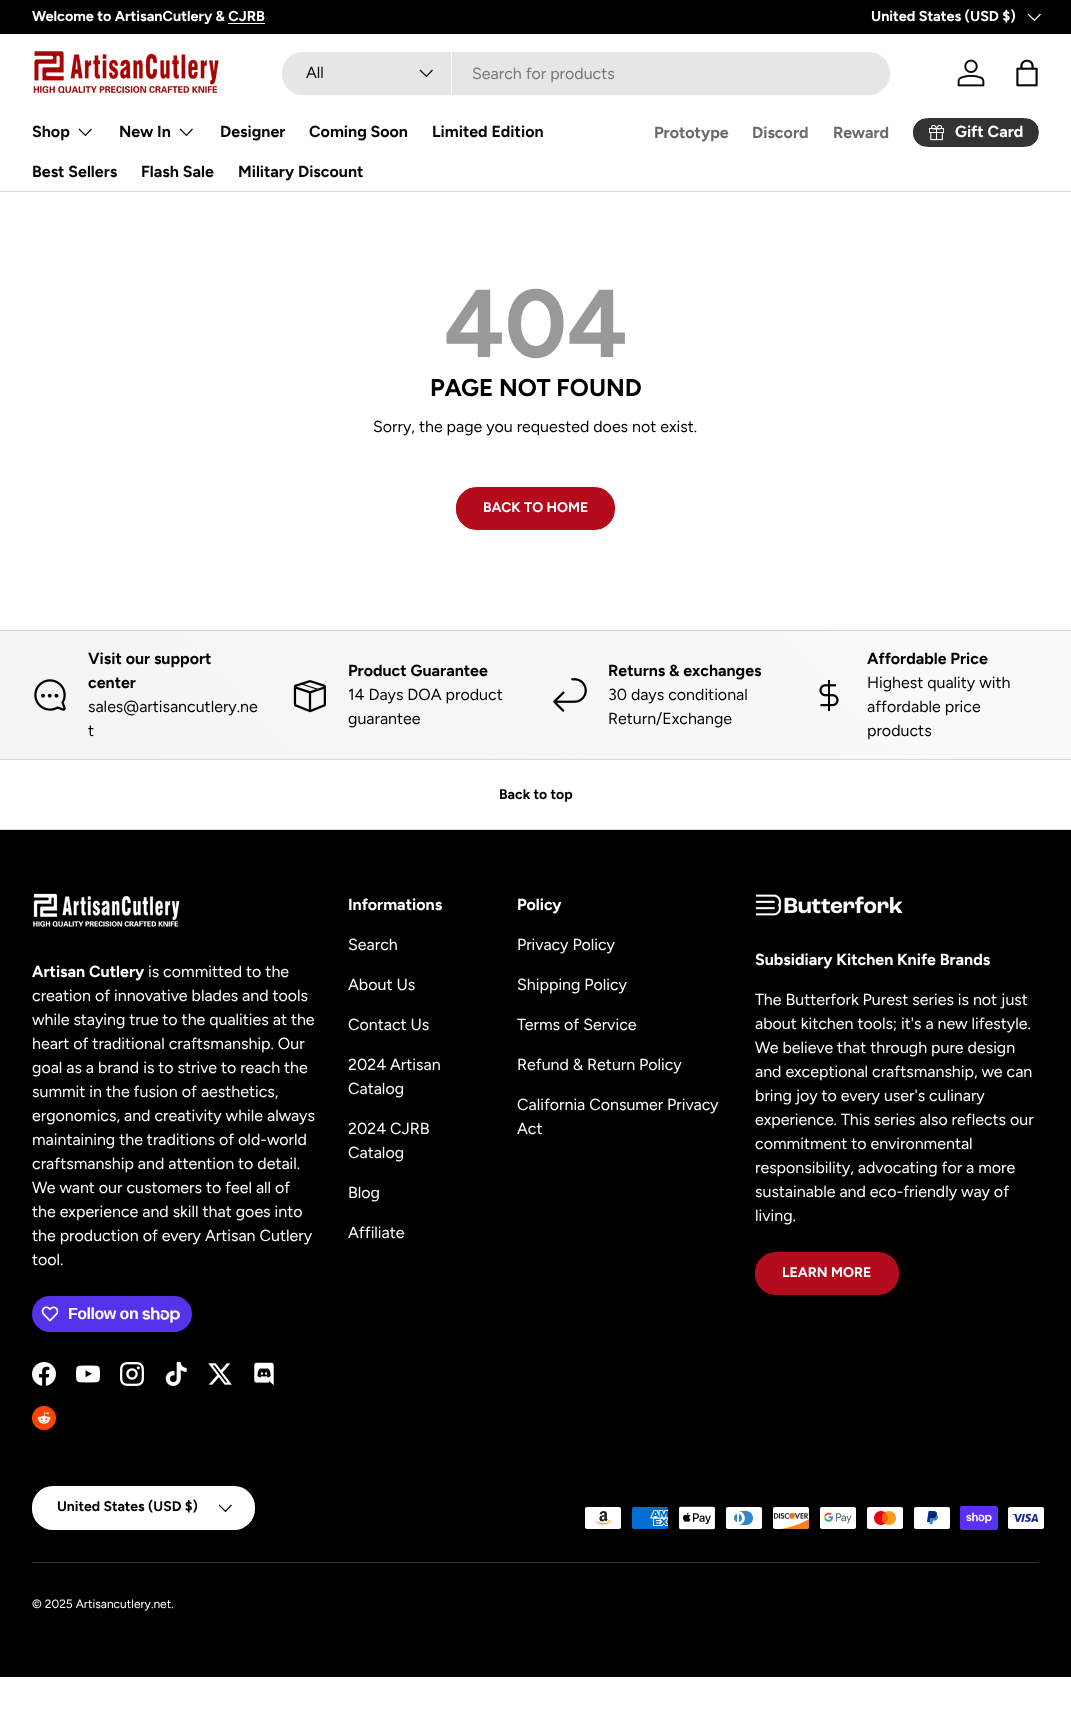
async function draw(canvas) {
	canvas.width = 1071;
	canvas.height = 1711;
	const c = canvas.getContext('2d');
	c.miterLimit = 4;
	c.fontKerning = 'normal';
	async function loadImage(src) {
		const img = new Image();
		img.src = src;
		await img.decode();
		return img;
	}
	let gradient;

	c.fillStyle = '#fff';
	c.fillRect(0, 0, 1071, 1711);
	c.fillStyle = '#000';
	c.fillRect(0, 0, 1071, 34);
	c.font = 'bold 14.4px Figtree';
	c.fillStyle = '#fff';
	c.fillText('Welcome to ArtisanCutlery & CJRB', 32, 21);
	c.fillRect(228, 23, 37, 1);
	c.fillText('United States (USD $)', 871, 21);
	c.beginPath();
	c.moveTo(1040.5, 14);
	c.lineTo(1034.5, 20.5);
	c.lineTo(1028, 14);
	c.strokeStyle = '#fff';
	c.lineWidth = 1.2;
	c.stroke();
	c.fillStyle = '#dadada';
	c.fillRect(0, 191, 1071, 1);
	c.drawImage(await loadImage('img1.png'), 33, 51, 186, 42);
	c.fillStyle = '#e6e6e6';
	c.beginPath();
	c.roundRect(282, 52, 608, 43, 21);
	c.fill();
	c.beginPath();
	c.roundRect(282, 52, 170, 43, [21, 0, 0, 21]);
	c.fill();
	c.fillStyle = '#fff';
	c.fillRect(451, 52, 1, 43);
	c.font = '16px Figtree';
	c.fillStyle = '#070707';
	c.fillText('All', 306, 78);
	c.beginPath();
	c.moveTo(432.5, 70);
	c.lineTo(426.5, 76.5);
	c.lineTo(420, 70);
	c.strokeStyle = '#070707';
	c.stroke();
	c.fillStyle = '#777';
	c.fillText('Search for products', 472, 79);
	c.drawImage(await loadImage('img2.png'), 957, 59, 28, 28);
	c.drawImage(await loadImage('img3.png'), 1016, 59, 22, 28);
	c.font = 'bold 16px Figtree';
	c.fillStyle = '#070707';
	c.fillText('Shop', 32, 137);
	c.beginPath();
	c.moveTo(91.5, 129);
	c.lineTo(85.5, 135.5);
	c.lineTo(79, 129);
	c.stroke();
	c.fillText('New In', 119, 137);
	c.beginPath();
	c.moveTo(192.5, 129);
	c.lineTo(186.5, 135.5);
	c.lineTo(180, 129);
	c.stroke();
	for (const [text, x, y] of [
		['Designer', 220, 137],
		['Coming Soon', 309, 137],
		['Limited Edition', 432, 137],
		['Best Sellers', 32, 177],
		['Flash Sale', 141, 177],
		['Military Discount', 238, 177],
	]) {
		c.fillText(text, x, y);
	}
	c.fillStyle = '#6a6a6a';
	for (const [text, x, y] of [
		['Prototype', 654, 138],
		['Discord', 752, 138],
		['Reward', 833, 138],
	]) {
		c.fillText(text, x, y);
	}
	c.save();
	c.beginPath();
	c.roundRect(913, 118, 126, 29, 14.5);
	c.clip();
	gradient = c.createLinearGradient(674, 88, 1030, 177);
	gradient.addColorStop(0.6, '#5a5a5a');
	gradient.addColorStop(0.6, '#333');
	gradient.addColorStop(1, '#333');
	c.fillStyle = gradient;
	c.fillRect(913, 119, 125, 27);
	c.restore();
	c.beginPath();
	c.roundRect(913.5, 118.5, 125, 28, 14);
	c.strokeStyle = '#333';
	c.lineWidth = 1;
	c.stroke();
	c.drawImage(await loadImage('img4.png'), 929, 124, 15, 17);
	c.fillStyle = '#fff';
	c.fillText('Gift Card', 955, 137);
	c.font = 'bold 96px Figtree';
	c.fillStyle = '#999';
	c.fillText('404', 444, 357);
	c.font = 'bold 24.25px Figtree';
	c.fillStyle = '#000';
	c.fillText('PAGE NOT FOUND', 430, 396);
	c.font = '16px Figtree';
	c.fillText('Sorry, the page you requested does not exist.', 373, 432);
	c.save();
	c.beginPath();
	c.roundRect(456, 487, 159, 43, 21);
	c.clip();
	gradient = c.createLinearGradient(152, 452, 605, 565);
	gradient.addColorStop(0.6, '#cb3342');
	gradient.addColorStop(0.6, '#b40c1c');
	gradient.addColorStop(1, '#b40c1c');
	c.fillStyle = gradient;
	c.fillRect(456, 488, 158, 41);
	c.restore();
	c.beginPath();
	c.roundRect(456.5, 487.5, 158, 42, 20.5);
	c.strokeStyle = '#b40c1c';
	c.stroke();
	c.font = 'bold 14px Figtree';
	c.fillStyle = '#fff';
	c.fillText('BACK TO HOME', 483, 512);
	gradient = c.createLinearGradient(226, 865, 845, 269);
	gradient.addColorStop(0.13, '#d0d0d0');
	gradient.addColorStop(0.86, '#d4d4d4');
	c.fillStyle = gradient;
	c.fillRect(0, 630, 1071, 1);
	gradient = c.createLinearGradient(226, 993, 845, 397);
	gradient.addColorStop(0.13, '#f5f5f5');
	gradient.addColorStop(0.86, '#f9f9f9');
	c.fillStyle = gradient;
	c.fillRect(0, 631, 1071, 128);
	c.drawImage(await loadImage('img5.png'), 34, 679, 32, 32);
	c.font = 'bold 16px Figtree';
	c.fillStyle = '#000';
	c.fillText('Visit our support', 88, 664);
	c.fillText('center', 88, 688);
	c.font = '16px Figtree';
	c.fillText('sales@artisancutlery.ne', 88, 712);
	c.fillText('t', 88, 736);
	c.drawImage(await loadImage('img6.png'), 293, 680, 33, 33);
	c.font = 'bold 16px Figtree';
	c.fillText('Product Guarantee', 348, 676);
	c.font = '16px Figtree';
	c.fillText('14 Days DOA product', 348, 700);
	c.fillText('guarantee', 348, 724);
	c.drawImage(await loadImage('img7.png'), 553, 678, 34, 34);
	c.font = 'bold 16px Figtree';
	c.fillText('Returns & exchanges', 608, 676);
	c.font = '16px Figtree';
	c.fillText('30 days conditional', 608, 700);
	c.fillText('Return/Exchange', 608, 724);
	c.drawImage(await loadImage('img8.png'), 819, 680, 20, 31);
	c.font = 'bold 16px Figtree';
	c.fillText('Affordable Price', 867, 664);
	c.font = '16px Figtree';
	for (const [text, x, y] of [
		['Highest quality with', 867, 688],
		['affordable price', 867, 712],
		['products', 867, 736],
	]) {
		c.fillText(text, x, y);
	}
	c.fillStyle = '#d9d9d9';
	c.fillRect(0, 759, 1071, 1);
	c.fillRect(0, 829, 1071, 1);
	c.font = 'bold 14px Figtree';
	c.fillStyle = '#000';
	c.fillText('Back to top', 499, 799);
	c.fillRect(0, 830, 1071, 847);
	c.drawImage(await loadImage('img9.png'), 33, 893, 147, 35);
	c.font = 'bold 16px Figtree';
	c.fillStyle = '#fff';
	c.fillText('Artisan Cutlery', 32, 977);
	c.font = '16px Figtree';
	for (const [text, x, y] of [
		['is committed to the', 148, 977],
		['creation of innovative blades and tools', 32, 1001],
		['while staying true to the qualities at the', 32, 1025],
		['heart of traditional craftsmanship. Our', 32, 1049],
		['goal as a brand is to strive to reach the', 32, 1073],
		['summit in the fusion of aesthetics,', 32, 1097],
		['ergonomics, and creativity while always', 32, 1121],
		['maintaining the traditions of old-world', 32, 1145],
		['craftsmanship and attention to detail.', 32, 1169],
		['We want our customers to feel all of', 32, 1193],
		['the experience and skill that goes into', 32, 1217],
		['the production of every Artisan Cutlery', 32, 1241],
		['tool.', 32, 1265],
	]) {
		c.fillText(text, x, y);
	}
	c.fillStyle = '#5433eb';
	c.beginPath();
	c.roundRect(32, 1296, 160, 36, 18);
	c.fill();
	c.drawImage(await loadImage('img10.png'), 41, 1306, 18, 16);
	c.letterSpacing = '-0.5px';
	c.font = 'bold 16px Liberation Sans';
	c.fillStyle = '#fff';
	c.fillText('Follow on', 68, 1319);
	c.drawImage(await loadImage('img11.png'), 142, 1307, 38, 16);
	c.drawImage(await loadImage('img12.png'), 32, 1362, 24, 24);
	c.drawImage(await loadImage('img13.png'), 76, 1365, 24, 18);
	c.drawImage(await loadImage('img14.png'), 120, 1362, 24, 24);
	c.drawImage(await loadImage('img15.png'), 165, 1362, 22, 24);
	c.drawImage(await loadImage('img16.png'), 208, 1363, 24, 22);
	c.drawImage(await loadImage('img17.png'), 254, 1362, 20, 24);
	c.drawImage(await loadImage('img18.png'), 32, 1406, 24, 24);
	c.letterSpacing = '0px';
	c.font = 'bold 16px Figtree';
	c.fillText('Informations', 348, 910);
	c.font = '16px Figtree';
	for (const [text, x, y] of [
		['Search', 348, 950],
		['About Us', 348, 990],
		['Contact Us', 348, 1030],
		['2024 Artisan', 348, 1070],
		['Catalog', 348, 1094],
		['2024 CJRB', 348, 1134],
		['Catalog', 348, 1158],
		['Blog', 348, 1198],
		['Affiliate', 348, 1238],
	]) {
		c.fillText(text, x, y);
	}
	c.font = 'bold 16px Figtree';
	c.fillText('Policy', 517, 910);
	c.font = '16px Figtree';
	for (const [text, x, y] of [
		['Privacy Policy', 517, 950],
		['Shipping Policy', 517, 990],
		['Terms of Service', 517, 1030],
		['Refund & Return Policy', 517, 1070],
		['California Consumer Privacy', 517, 1110],
		['Act', 517, 1134],
	]) {
		c.fillText(text, x, y);
	}
	c.drawImage(await loadImage('img19.png'), 755, 894, 148, 22);
	c.font = 'bold 16px Figtree';
	c.fillText('Subsidiary Kitchen Knife Brands', 755, 965);
	c.font = '16px Figtree';
	for (const [text, x, y] of [
		['The Butterfork Purest series is not just', 755, 1005],
		['about kitchen tools; it\'s a new lifestyle.', 755, 1029],
		['We believe that through pure design', 755, 1053],
		['and exceptional craftsmanship, we can', 755, 1077],
		['bring joy to every user\'s culinary', 755, 1101],
		['experience. This series also reflects our', 755, 1125],
		['commitment to environmental', 755, 1149],
		['responsibility, advocating for a more', 755, 1173],
		['sustainable and eco-friendly way of', 755, 1197],
		['living.', 755, 1221],
	]) {
		c.fillText(text, x, y);
	}
	c.save();
	c.beginPath();
	c.roundRect(755, 1252, 144, 43, 21);
	c.clip();
	gradient = c.createLinearGradient(480, 1222, 890, 1325);
	gradient.addColorStop(0.6, '#cb3342');
	gradient.addColorStop(0.6, '#b40c1c');
	gradient.addColorStop(1, '#b40c1c');
	c.fillStyle = gradient;
	c.fillRect(755, 1253, 143, 41);
	c.restore();
	c.beginPath();
	c.roundRect(755.5, 1252.5, 143, 42, 20.5);
	c.stroke();
	c.font = 'bold 14px Figtree';
	c.fillText('LEARN MORE', 782, 1277);
	c.beginPath();
	c.roundRect(32, 1486, 223, 44, 21);
	c.fill();
	c.beginPath();
	c.roundRect(32.5, 1486.5, 222, 43, 20.5);
	c.strokeStyle = '#ffffff33';
	c.stroke();
	c.fillStyle = '#000';
	c.fillText('United States (USD $)', 57, 1511);
	c.beginPath();
	c.moveTo(231.5, 1505);
	c.lineTo(225.5, 1511.5);
	c.lineTo(219, 1505);
	c.strokeStyle = '#000';
	c.lineWidth = 1.2;
	c.stroke();
	c.drawImage(await loadImage('img20.png'), 585, 1507, 36, 22);
	c.drawImage(await loadImage('img21.png'), 632, 1507, 36, 22);
	c.drawImage(await loadImage('img22.png'), 679, 1506, 36, 24);
	c.drawImage(await loadImage('img23.png'), 726, 1507, 36, 22);
	c.drawImage(await loadImage('img24.png'), 773, 1507, 37, 22);
	c.drawImage(await loadImage('img25.png'), 820, 1507, 36, 22);
	c.drawImage(await loadImage('img26.png'), 867, 1507, 36, 22);
	c.drawImage(await loadImage('img27.png'), 914, 1507, 36, 22);
	c.drawImage(await loadImage('img28.png'), 960, 1506, 38, 24);
	c.drawImage(await loadImage('img29.png'), 1008, 1507, 36, 22);
	c.fillStyle = '#333';
	c.fillRect(32, 1562, 1007, 1);
	c.font = '12px Figtree';
	c.fillStyle = '#fff';
	c.fillText('© 2025 Artisancutlery.net.', 32, 1608);
}

draw(document.querySelector('canvas'));
